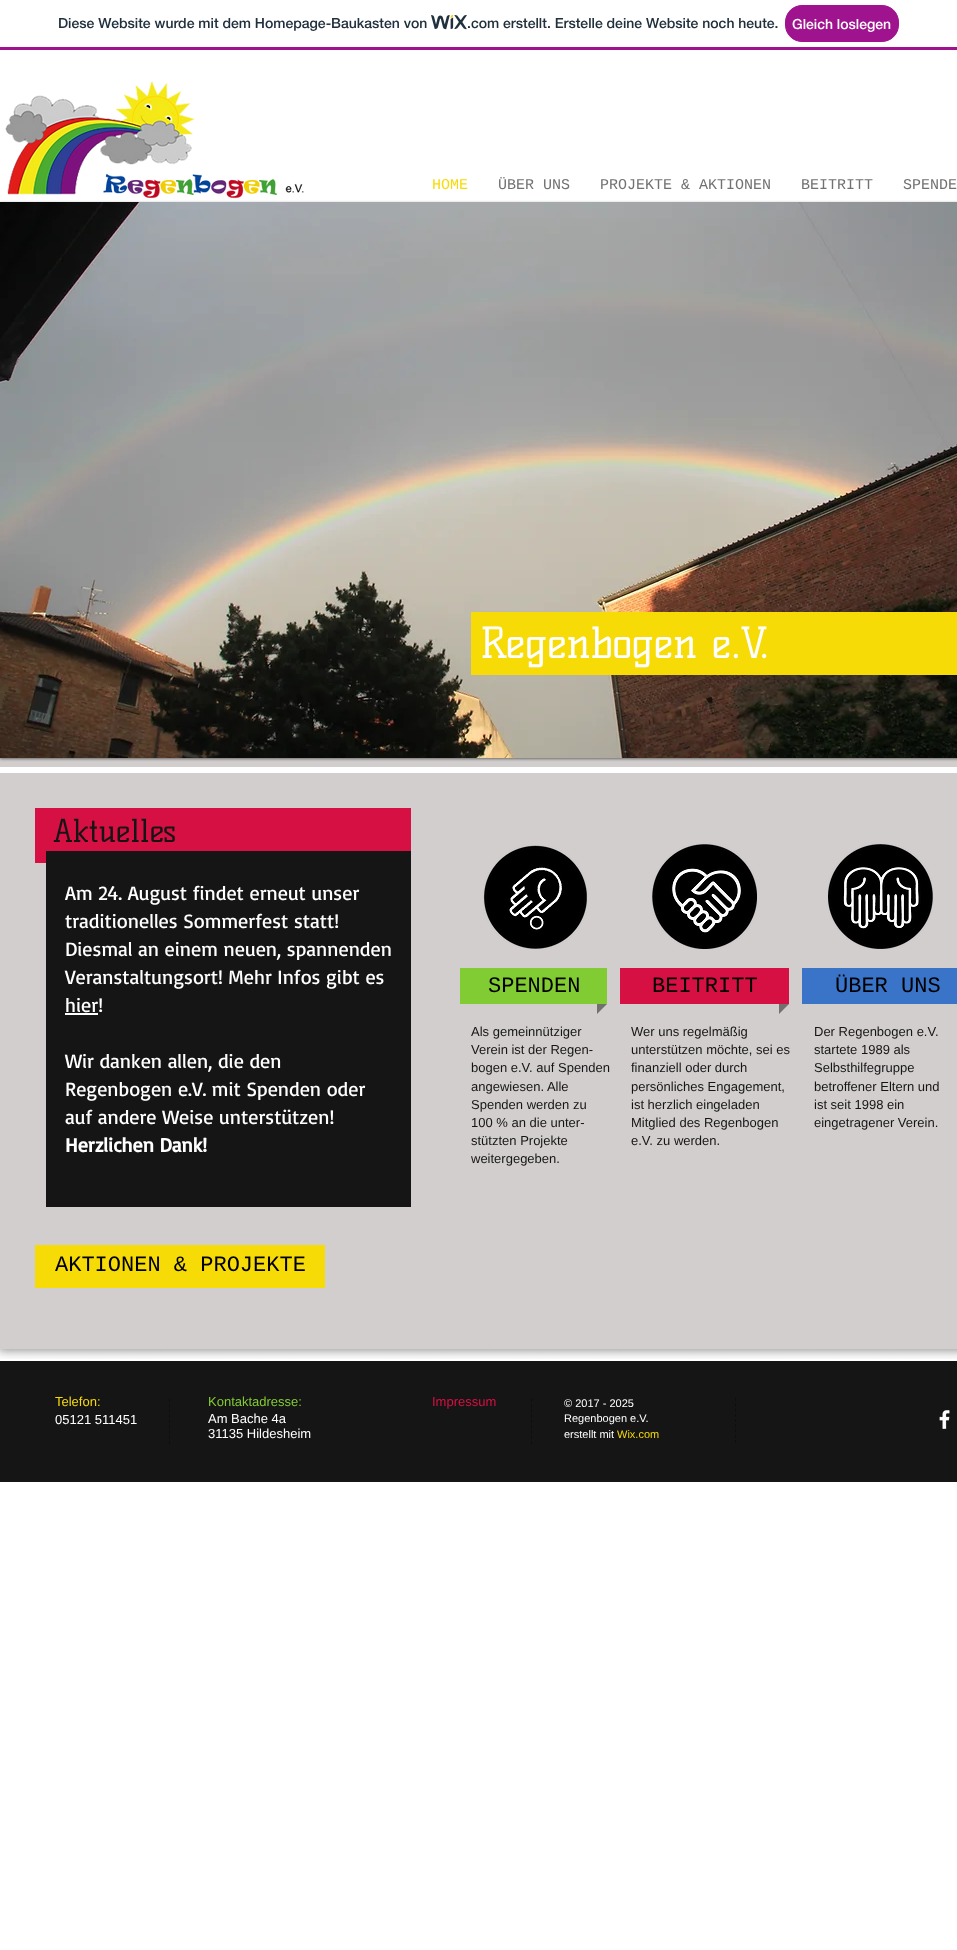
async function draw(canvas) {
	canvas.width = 957;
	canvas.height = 1950;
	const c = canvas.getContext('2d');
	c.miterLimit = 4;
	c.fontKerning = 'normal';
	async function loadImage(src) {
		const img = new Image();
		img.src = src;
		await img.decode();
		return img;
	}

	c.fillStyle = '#fff';
	c.fillRect(0, 0, 957, 1950);
	c.fillStyle = '#a0138e';
	c.fillRect(0, 47, 957, 3);
	c.font = '500 14px "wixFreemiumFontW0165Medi"';
	c.fillStyle = '#20303c';
	c.fillText('Diese Website wurde mit dem Homepage-Baukasten von', 58, 28);
	c.drawImage(await loadImage('img1.png'), 431, 15, 36, 15);
	c.fillText('.com erstellt. Erstelle deine Website noch heute.', 467, 28);
	c.fillStyle = '#a0138e';
	c.beginPath();
	c.roundRect(785.5, 5.5, 113, 36, 16.5);
	c.fill();
	c.strokeStyle = '#a0138e';
	c.stroke();
	c.fillStyle = '#fff';
	c.fillText('Gleich loslegen', 792, 29);
	c.drawImage(await loadImage('img2.png'), 5, 81, 299, 119);
	c.font = '15px Liberation Mono';
	c.fillStyle = '#f7db07';
	c.fillText('HOME', 432, 189);
	c.fillStyle = '#737070';
	for (const [text, x, y] of [
		['ÜBER UNS', 498, 189],
		['PROJEKTE & AKTIONEN', 600, 189],
		['BEITRITT', 801, 189],
		['SPENDE', 903, 189],
	]) {
		c.fillText(text, x, y);
	}
	c.fillStyle = '#d2cece';
	c.fillRect(0, 758, 957, 591);
	c.fillStyle = '#00000080';
	c.filter = 'blur(1.5px)';
	c.beginPath();
	c.rect(0, 203, 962, 556);
	c.fill();
	c.filter = 'none';
	c.drawImage(await loadImage('img3.png'), 0, 202, 957, 556);
	c.fillStyle = '#f7db07';
	c.fillRect(471, 612, 486, 63);
	c.font = '42px Kelly Slab';
	c.fillStyle = '#fff';
	c.fillText('Regenbogen e.V.', 480, 658);
	c.fillRect(0, 767, 957, 6);
	c.fillStyle = '#d61043';
	c.fillRect(35, 808, 376, 55);
	c.font = '31px Kelly Slab';
	c.fillStyle = '#161515';
	c.fillText('Aktuelles', 53, 842);
	c.fillRect(46, 851, 365, 356);
	c.font = '20px Basic';
	c.fillStyle = '#fff';
	for (const [text, x, y] of [
		['Am 24. August findet erneut unser', 65, 900],
		['traditionelles Sommerfest statt!', 65, 928],
		['Diesmal an einem neuen, spannenden', 65, 956],
		['Veranstaltungsort! Mehr Infos gibt es', 65, 984],
		['hier!', 65, 1012],
	]) {
		c.fillText(text, x, y);
	}
	c.fillRect(65, 1013, 33, 2);
	for (const [text, x, y] of [
		['Wir danken allen, die den', 65, 1068],
		['Regenbogen e.V. mit Spenden oder', 65, 1096],
		['auf andere Weise unterstützen!', 65, 1124],
	]) {
		c.fillText(text, x, y);
	}
	c.font = 'bold 20px Basic';
	c.fillText('Herzlichen Dank!', 65, 1152);
	c.drawImage(await loadImage('img4.png'), 483, 845, 104, 104);
	c.drawImage(await loadImage('img5.png'), 652, 844, 105, 105);
	c.drawImage(await loadImage('img6.png'), 828, 844, 105, 105);
	c.fillStyle = '#82cc33';
	c.fillRect(460, 968, 147, 36);
	c.font = '22px Liberation Mono';
	c.fillStyle = '#000';
	c.fillText('SPENDEN', 488, 992);
	c.fillStyle = '#737070';
	c.beginPath();
	c.moveTo(597, 1004);
	c.lineTo(607, 1004);
	c.lineTo(597, 1014);
	c.closePath();
	c.fill();
	c.fillStyle = '#d61043';
	c.fillRect(620, 968, 169, 36);
	c.fillStyle = '#000';
	c.fillText('BEITRITT', 652, 992);
	c.fillStyle = '#737070';
	c.beginPath();
	c.moveTo(779, 1004);
	c.lineTo(789, 1004);
	c.lineTo(779, 1014);
	c.closePath();
	c.fill();
	c.fillStyle = '#3a74c9';
	c.fillRect(802, 968, 155, 36);
	c.fillStyle = '#000';
	c.fillText('ÜBER UNS', 835, 992);
	c.font = '13px Liberation Sans';
	c.fillStyle = '#161515';
	for (const [text, x, y] of [
		['Als gemeinnütziger', 471, 1036],
		['Verein ist der Regen-', 471, 1054],
		['bogen e.V. auf Spenden', 471, 1072],
		['angewiesen. Alle', 471, 1091],
		['Spenden werden zu', 471, 1109],
		['100 % an die unter-', 471, 1127],
		['stützten Projekte', 471, 1145],
		['weitergegeben.', 471, 1163],
		['Wer uns regelmäßig', 631, 1036],
		['unterstützen möchte, sei es', 631, 1054],
		['finanziell oder durch', 631, 1072],
		['persönliches Engagement,', 631, 1091],
		['ist herzlich eingeladen', 631, 1109],
		['Mitglied des Regenbogen', 631, 1127],
		['e.V. zu werden.', 631, 1145],
		['Der Regenbogen e.V.', 814, 1036],
		['startete 1989 als', 814, 1054],
		['Selbsthilfegruppe', 814, 1072],
		['betroffener Eltern und', 814, 1091],
		['ist seit 1998 ein', 814, 1109],
		['eingetragener Verein.', 814, 1127],
	]) {
		c.fillText(text, x, y);
	}
	c.fillStyle = '#f7db07';
	c.fillRect(35, 1245, 290, 43);
	c.font = '22px Liberation Mono';
	c.fillStyle = '#000';
	c.fillText('AKTIONEN & PROJEKTE', 55, 1271);
	c.drawImage(await loadImage('img7.png'), 0, 1349, 35, 10);
	c.drawImage(await loadImage('img8.png'), 35, 1349, 910, 10);
	c.drawImage(await loadImage('img9.png'), 945, 1349, 12, 10);
	c.fillStyle = '#161515';
	c.fillRect(0, 1361, 957, 121);
	c.font = '13px Liberation Sans';
	c.fillStyle = '#f7db07';
	c.fillText('Telefon:', 55, 1406);
	c.fillStyle = '#fff';
	c.fillText('05121 511451', 55, 1424);
	c.beginPath();
	c.moveTo(169.5, 1399);
	c.lineTo(169.5, 1444);
	c.strokeStyle = '#0e0e0e';
	c.setLineDash([3, 2.25]);
	c.stroke();
	c.fillStyle = '#82cc33';
	c.fillText('Kontaktadresse:', 208, 1406);
	c.fillStyle = '#d61043';
	c.fillText('Impressum', 432, 1406);
	c.fillStyle = '#fff';
	c.fillText('Am Bache 4a', 208, 1423);
	c.fillText('31135 Hildesheim', 208, 1438);
	c.beginPath();
	c.moveTo(531.5, 1399);
	c.lineTo(531.5, 1444);
	c.stroke();
	c.font = '11px Liberation Sans';
	for (const [text, x, y] of [
		['© 2017 - 2025', 564, 1407],
		['Regenbogen e.V.', 564, 1422],
		['erstellt mit', 564, 1438],
	]) {
		c.fillText(text, x, y);
	}
	c.fillStyle = '#f7db07';
	c.fillText('Wix.com', 617, 1438);
	c.beginPath();
	c.moveTo(735.5, 1398);
	c.lineTo(735.5, 1443);
	c.stroke();
	c.drawImage(await loadImage('img10.png'), 939, 1410, 11, 19);
}

draw(document.querySelector('canvas'));
